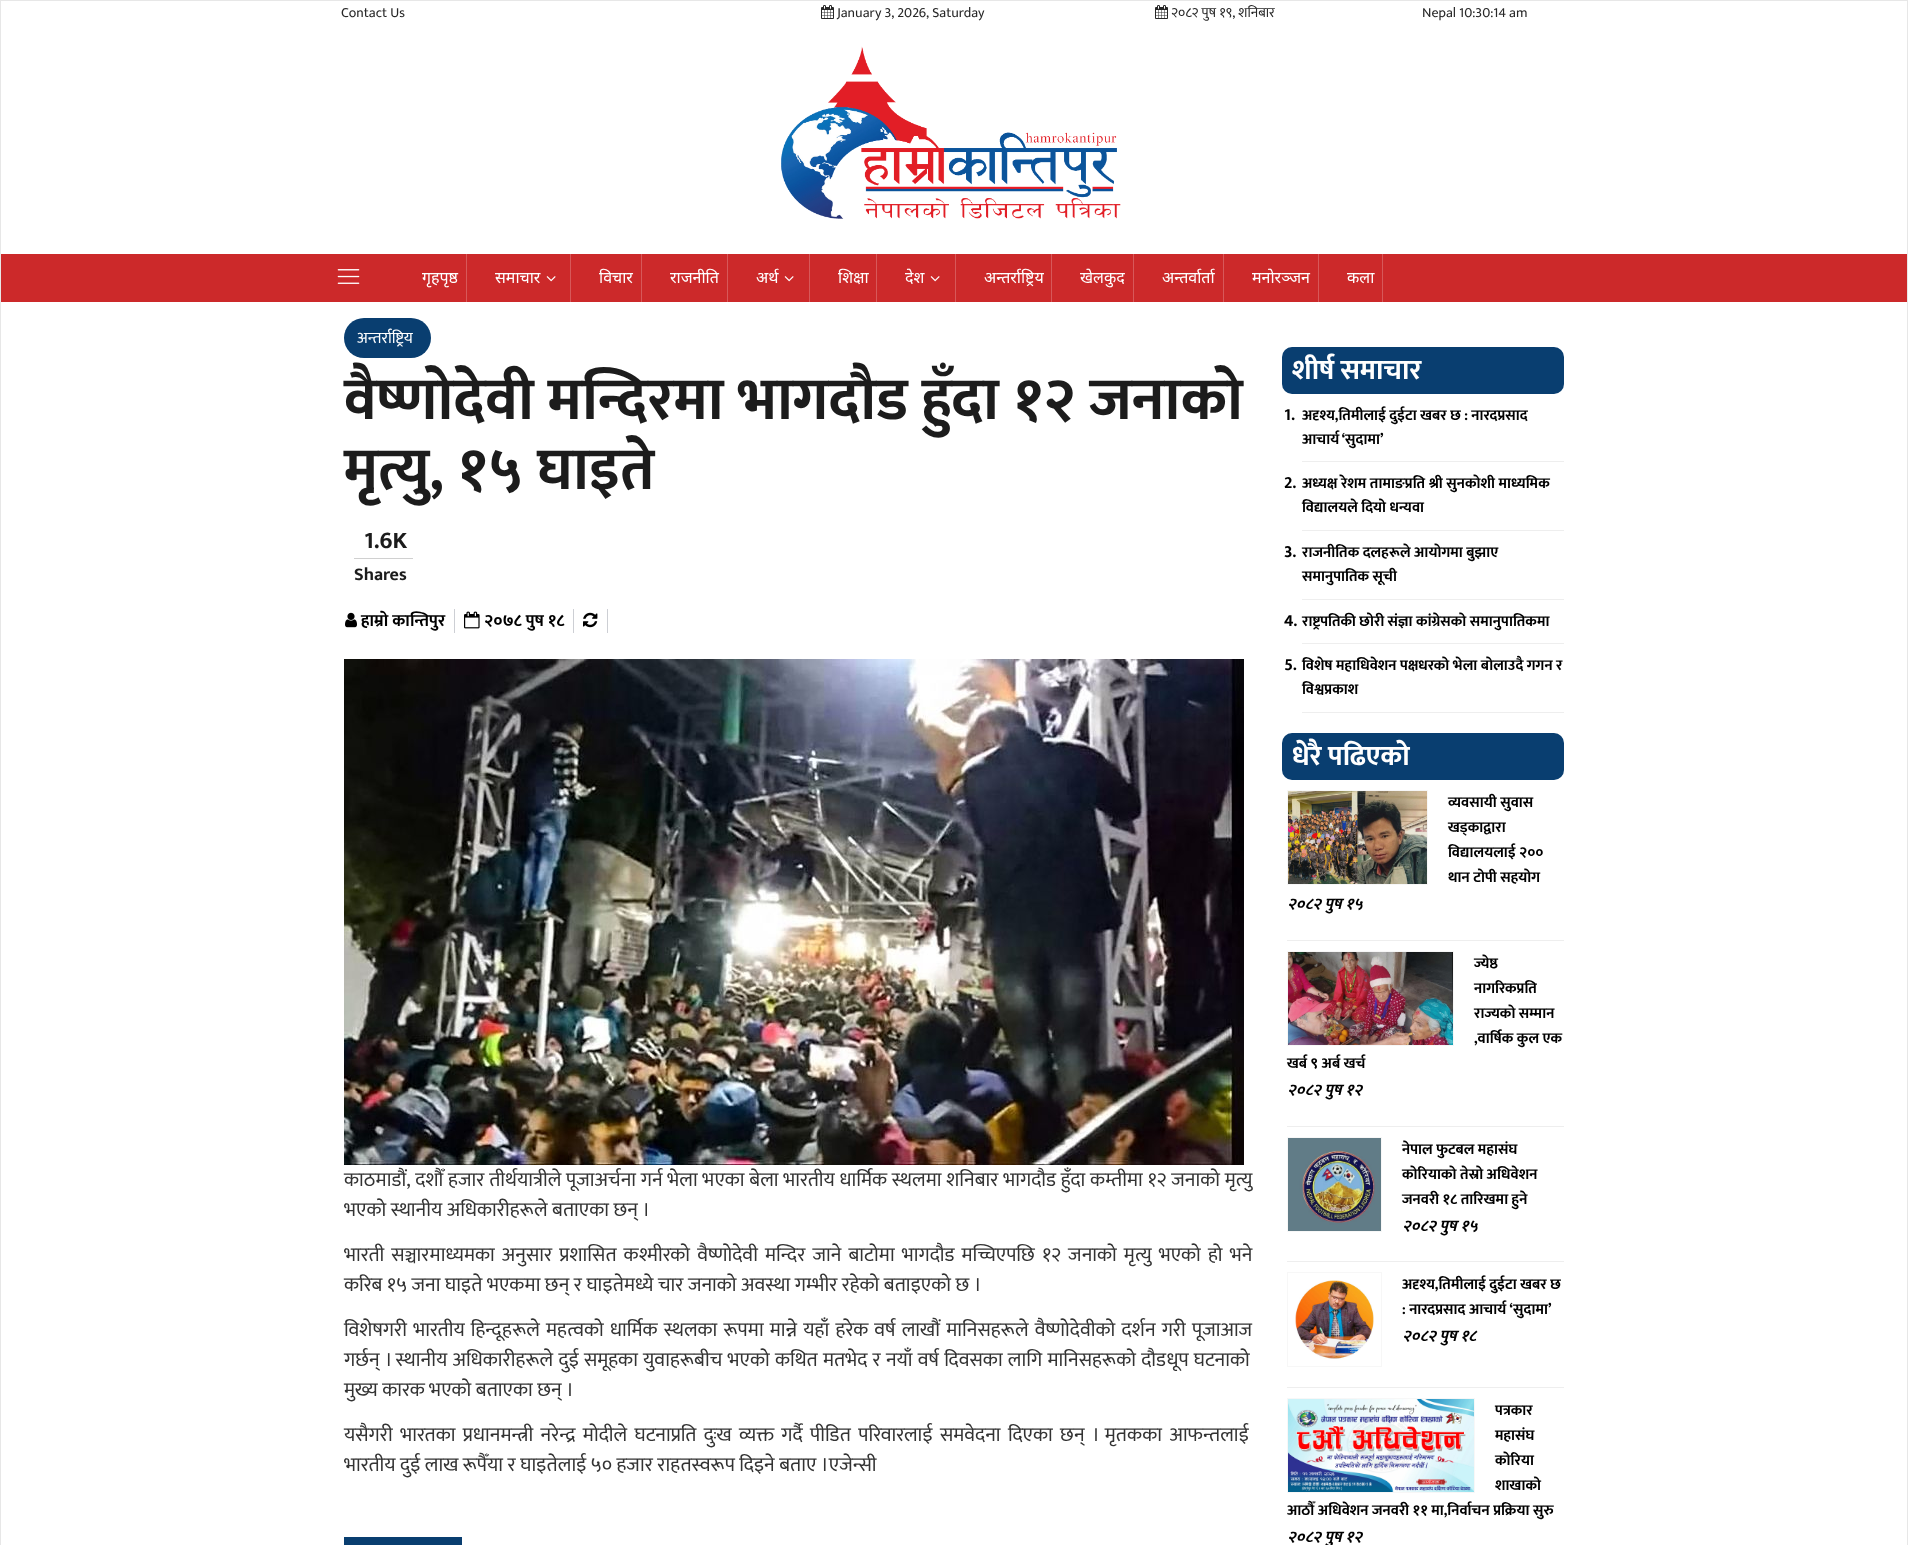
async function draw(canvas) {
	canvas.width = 1908;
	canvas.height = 1545;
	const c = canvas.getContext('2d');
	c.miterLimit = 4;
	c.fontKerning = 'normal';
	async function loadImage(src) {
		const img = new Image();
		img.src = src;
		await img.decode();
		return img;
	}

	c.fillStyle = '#fff';
	c.fillRect(0, 0, 1908, 1545);
	c.strokeStyle = '#e7e7e7';
	c.strokeRect(0.5, 0.5, 1907, 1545);
	c.font = '14px Mukta';
	c.fillStyle = '#282828';
	c.fillText('Contact Us', 341, 17);
	c.drawImage(await loadImage('img1.png'), 821, 5, 13, 14);
	c.fillText('January 3, 2026, Saturday', 837, 17);
	c.drawImage(await loadImage('img1.png'), 1155, 5, 13, 14);
	c.fillText('२०८२ पुष १९, शनिबार', 1171, 17);
	c.fillText('Nepal 10:30:14 am', 1422, 17);
	c.drawImage(await loadImage('img2.png'), 781, 46, 340, 173);
	c.fillStyle = '#cc292a';
	c.fillRect(1, 254, 1906, 48);
	c.drawImage(await loadImage('img3.png'), 337, 269, 23, 15);
	c.fillStyle = '#d75859';
	c.fillRect(466, 254, 1, 48);
	c.font = '16px Noto Sans';
	c.fillStyle = '#fff';
	c.fillText('गृहपृष्ठ', 422, 283);
	c.fillStyle = '#d75859';
	c.fillRect(570, 254, 1, 48);
	c.fillStyle = '#fff';
	c.fillText('समाचार', 495, 283);
	c.drawImage(await loadImage('img4.png'), 546, 276, 10, 6);
	c.fillStyle = '#d75859';
	c.fillRect(641, 254, 1, 48);
	c.fillStyle = '#fff';
	c.fillText('विचार', 599, 283);
	c.fillStyle = '#d75859';
	c.fillRect(727, 254, 1, 48);
	c.fillStyle = '#fff';
	c.fillText('राजनीति', 670, 283);
	c.fillStyle = '#d75859';
	c.fillRect(809, 254, 1, 48);
	c.fillStyle = '#fff';
	c.fillText('अर्थ', 756, 283);
	c.drawImage(await loadImage('img4.png'), 784, 276, 10, 6);
	c.fillStyle = '#d75859';
	c.fillRect(876, 254, 1, 48);
	c.fillStyle = '#fff';
	c.fillText('शिक्षा', 838, 283);
	c.fillStyle = '#d75859';
	c.fillRect(955, 254, 1, 48);
	c.fillStyle = '#fff';
	c.fillText('देश', 905, 283);
	c.drawImage(await loadImage('img4.png'), 930, 276, 10, 6);
	c.fillStyle = '#d75859';
	c.fillRect(1051, 254, 1, 48);
	c.fillStyle = '#fff';
	c.fillText('अन्तर्राष्ट्रिय', 984, 283);
	c.fillStyle = '#d75859';
	c.fillRect(1133, 254, 1, 48);
	c.fillStyle = '#fff';
	c.fillText('खेलकुद', 1080, 283);
	c.fillStyle = '#d75859';
	c.fillRect(1223, 254, 1, 48);
	c.fillStyle = '#fff';
	c.fillText('अन्तर्वार्ता', 1162, 283);
	c.fillStyle = '#d75859';
	c.fillRect(1318, 254, 1, 48);
	c.fillStyle = '#fff';
	c.fillText('मनोरञ्जन', 1252, 283);
	c.fillStyle = '#d75859';
	c.fillRect(1382, 254, 1, 48);
	c.fillStyle = '#fff';
	c.fillText('कला', 1347, 283);
	c.fillStyle = '#093e70';
	c.beginPath();
	c.roundRect(344, 318, 87, 40, 20);
	c.fill();
	c.font = '16px Mukta';
	c.fillStyle = '#fff';
	c.fillText('अन्तर्राष्ट्रिय', 357, 343);
	c.font = 'bold 60px Mukta';
	c.fillStyle = '#1c1c1c';
	c.fillText('वैष्णोदेवी मन्दिरमा भागदौड हुँदा १२ जनाको', 344, 419);
	c.fillText('मृत्यु, १५ घाइते', 344, 489);
	c.fillStyle = '#d0d0d0';
	c.fillRect(354, 558, 59, 1);
	c.font = 'bold 24px Mukta';
	c.fillStyle = '#1c1c1c';
	c.fillText('1.6K', 364, 548);
	c.font = 'bold 18px Mukta';
	c.fillText('Shares', 354, 580);
	c.fillStyle = '#cdcfd4';
	c.fillRect(454, 609, 1, 24);
	c.drawImage(await loadImage('img5.png'), 345, 612, 12, 16);
	c.font = 'bold 17px Mukta';
	c.fillStyle = '#000';
	c.fillText('हाम्रो कान्तिपुर', 361, 626);
	c.fillStyle = '#cdcfd4';
	c.fillRect(573, 609, 1, 24);
	c.drawImage(await loadImage('img6.png'), 464, 611, 16, 18);
	c.fillStyle = '#000';
	c.fillText('२०७८ पुष १८', 484, 626);
	c.fillStyle = '#cdcfd4';
	c.fillRect(607, 609, 1, 24);
	c.drawImage(await loadImage('img7.png'), 583, 612, 15, 16);
	c.drawImage(await loadImage('img8.png'), 344, 659, 900, 506);
	c.wordSpacing = '0.25px';
	c.font = '20px Mukta';
	c.fillStyle = '#333';
	c.fillText('काठमाडौं, दशौँ हजार तीर्थयात्रीले पूजाअर्चना गर्न भेला भएका बेला भारतीय धार्मिक स्थलमा शनिबार भागदौड हुँदा कम्तीमा १२ जनाको मृत्यु', 344, 1186);
	c.wordSpacing = '0px';
	c.fillText('भएको स्थानीय अधिकारीहरूले बताएका छन् ।', 344, 1216);
	c.wordSpacing = '2.6px';
	c.fillText('भारती सञ्चारमाध्यमका अनुसार प्रशासित कश्मीरको वैष्णोदेवी मन्दिर जाने बाटोमा भागदौड मच्चिएपछि १२ जनाको मृत्यु भएको हो भने', 344, 1261);
	c.wordSpacing = '0px';
	c.fillText('करिब १५ जना घाइते भएकमा छन् र घाइतेमध्ये चार जनाको अवस्था गम्भीर रहेको बताइएको छ ।', 344, 1291);
	c.wordSpacing = '1.7px';
	c.fillText('विशेषगरी भारतीय हिन्दूहरूले महत्वको धार्मिक स्थलका रूपमा मान्ने यहाँ हरेक वर्ष लाखौं मानिसहरूले वैष्णोदेवीको दर्शन गरी पूजाआज', 344, 1336);
	c.wordSpacing = '0.75px';
	c.fillText('गर्छन् । स्थानीय अधिकारीहरूले दुई समूहका युवाहरूबीच भएको कथित मतभेद र नयाँ वर्ष दिवसका लागि मानिसहरूको दौडधूप घटनाको', 344, 1366);
	c.wordSpacing = '0px';
	c.fillText('मुख्य कारक भएको बताएका छन् ।', 344, 1396);
	c.wordSpacing = '2.9px';
	c.fillText('यसैगरी भारतका प्रधानमन्त्री नरेन्द्र मोदीले घटनाप्रति दुःख व्यक्त गर्दै पीडित परिवारलाई समवेदना दिएका छन् । मृतकका आफन्तलाई', 344, 1441);
	c.wordSpacing = '0px';
	c.fillText('भारतीय दुई लाख रूपैँया र घाइतेलाई ५० हजार राहतस्वरूप दिइने बताए ।एजेन्सी', 344, 1471);
	c.fillStyle = '#093e70';
	c.fillRect(344, 1537, 118, 8);
	c.beginPath();
	c.roundRect(1282, 347, 282, 47, 10);
	c.fill();
	c.font = 'bold 28px Mukta';
	c.fillStyle = '#fff';
	c.fillText('शीर्ष समाचार', 1292, 379);
	c.fillStyle = '#eee';
	c.fillRect(1302, 461, 262, 1);
	c.font = 'bold 17px Mukta';
	c.fillStyle = '#000';
	c.fillText('1.', 1284, 420);
	c.font = 'bold 15px Mukta';
	c.fillText('अदृश्य,तिमीलाई दुईटा खबर छ : नारदप्रसाद', 1302, 420);
	c.wordSpacing = '-1px';
	c.fillText('आचार्य ‘सुदामा’', 1302, 444);
	c.fillStyle = '#eee';
	c.fillRect(1302, 530, 262, 1);
	c.wordSpacing = '0px';
	c.font = 'bold 17px Mukta';
	c.fillStyle = '#000';
	c.fillText('2.', 1284, 488);
	c.font = 'bold 15px Mukta';
	c.fillText('अध्यक्ष रेशम तामाङप्रति श्री सुनकोशी माध्यमिक', 1302, 488);
	c.fillText('विद्यालयले दियो धन्यवा', 1302, 512);
	c.fillStyle = '#eee';
	c.fillRect(1302, 599, 262, 1);
	c.font = 'bold 17px Mukta';
	c.fillStyle = '#000';
	c.fillText('3.', 1284, 557);
	c.font = 'bold 15px Mukta';
	c.fillText('राजनीतिक दलहरूले आयोगमा बुझाए', 1302, 557);
	c.fillText('समानुपातिक सूची', 1302, 581);
	c.fillStyle = '#eee';
	c.fillRect(1302, 643, 262, 1);
	c.font = 'bold 17px Mukta';
	c.fillStyle = '#000';
	c.fillText('4.', 1284, 626);
	c.font = 'bold 15px Mukta';
	c.fillText('राष्ट्रपतिकी छोरी संज्ञा कांग्रेसको समानुपातिकमा', 1302, 626);
	c.fillStyle = '#eee';
	c.fillRect(1302, 712, 262, 1);
	c.font = 'bold 17px Mukta';
	c.fillStyle = '#000';
	c.fillText('5.', 1284, 670);
	c.font = 'bold 15px Mukta';
	c.fillText('विशेष महाधिवेशन पक्षधरको भेला बोलाउदै गगन र', 1302, 670);
	c.fillText('विश्वप्रकाश', 1302, 694);
	c.fillStyle = '#093e70';
	c.beginPath();
	c.roundRect(1282, 733, 282, 47, 10);
	c.fill();
	c.font = 'bold 28px Mukta';
	c.fillStyle = '#fff';
	c.fillText('धेरै पढिएको', 1292, 765);
	c.fillStyle = '#eee';
	c.fillRect(1287, 940, 277, 1);
	c.strokeStyle = '#f7f7f7';
	c.strokeRect(1287.5, 790.5, 140, 94);
	c.drawImage(await loadImage('img9.png'), 1288, 791, 139, 93);
	c.font = 'bold 15px Mukta';
	c.fillStyle = '#000';
	for (const [text, x, y] of [
		['व्यवसायी सुवास', 1448, 807],
		['खड्काद्वारा', 1448, 832],
		['विद्यालयलाई २००', 1448, 857],
		['थान टाेपी सहयोग', 1448, 882],
	]) {
		c.fillText(text, x, y);
	}
	c.font = 'italic bold 16px Mukta';
	c.fillText('२०८२ पुष १५', 1287, 909);
	c.fillStyle = '#eee';
	c.fillRect(1287, 1126, 277, 1);
	c.strokeRect(1287.5, 951.5, 166, 94);
	c.drawImage(await loadImage('img10.png'), 1288, 952, 165, 93);
	c.font = 'bold 15px Mukta';
	c.fillStyle = '#000';
	for (const [text, x, y] of [
		['ज्येष्ठ', 1474, 968],
		['नागरिकप्रति', 1474, 993],
		['राज्यको सम्मान', 1474, 1018],
		[',वार्षिक कुल एक', 1474, 1043],
		['खर्ब ९ अर्ब खर्च', 1287, 1068],
	]) {
		c.fillText(text, x, y);
	}
	c.font = 'italic bold 16px Mukta';
	c.fillText('२०८२ पुष १२', 1287, 1095);
	c.fillStyle = '#eee';
	c.fillRect(1287, 1261, 277, 1);
	c.strokeRect(1287.5, 1137.5, 94, 94);
	c.drawImage(await loadImage('img11.png'), 1288, 1138, 93, 93);
	c.font = 'bold 15px Mukta';
	c.fillStyle = '#000';
	for (const [text, x, y] of [
		['नेपाल फुटबल महासंघ', 1402, 1154],
		['कोरियाको तेस्रो अधिवेशन', 1402, 1179],
		['जनवरी १८ तारिखमा हुने', 1402, 1204],
	]) {
		c.fillText(text, x, y);
	}
	c.font = 'italic bold 16px Mukta';
	c.fillText('२०८२ पुष १५', 1402, 1231);
	c.fillStyle = '#eee';
	c.fillRect(1287, 1387, 277, 1);
	c.strokeRect(1287.5, 1272.5, 94, 94);
	c.drawImage(await loadImage('img12.png'), 1295, 1280, 79, 79);
	c.font = 'bold 15px Mukta';
	c.fillStyle = '#000';
	c.fillText('अदृश्य,तिमीलाई दुईटा खबर छ', 1402, 1289);
	c.fillText(': नारदप्रसाद आचार्य ‘सुदामा’', 1402, 1314);
	c.font = 'italic bold 16px Mukta';
	c.fillText('२०८२ पुष १८', 1402, 1341);
	c.strokeRect(1287.5, 1398.5, 187, 94);
	c.drawImage(await loadImage('img13.png'), 1288, 1399, 186, 93);
	c.font = 'bold 15px Mukta';
	for (const [text, x, y] of [
		['पत्रकार', 1495, 1415],
		['महासंघ', 1495, 1440],
		['कोरिया', 1495, 1465],
		['शाखाको', 1495, 1490],
		['आठौँ अधिवेशन जनवरी ११ मा,निर्वाचन प्रक्रिया सुरु', 1287, 1515],
	]) {
		c.fillText(text, x, y);
	}
	c.font = 'italic bold 16px Mukta';
	c.fillText('२०८२ पुष १२', 1287, 1542);
}

draw(document.querySelector('canvas'));
